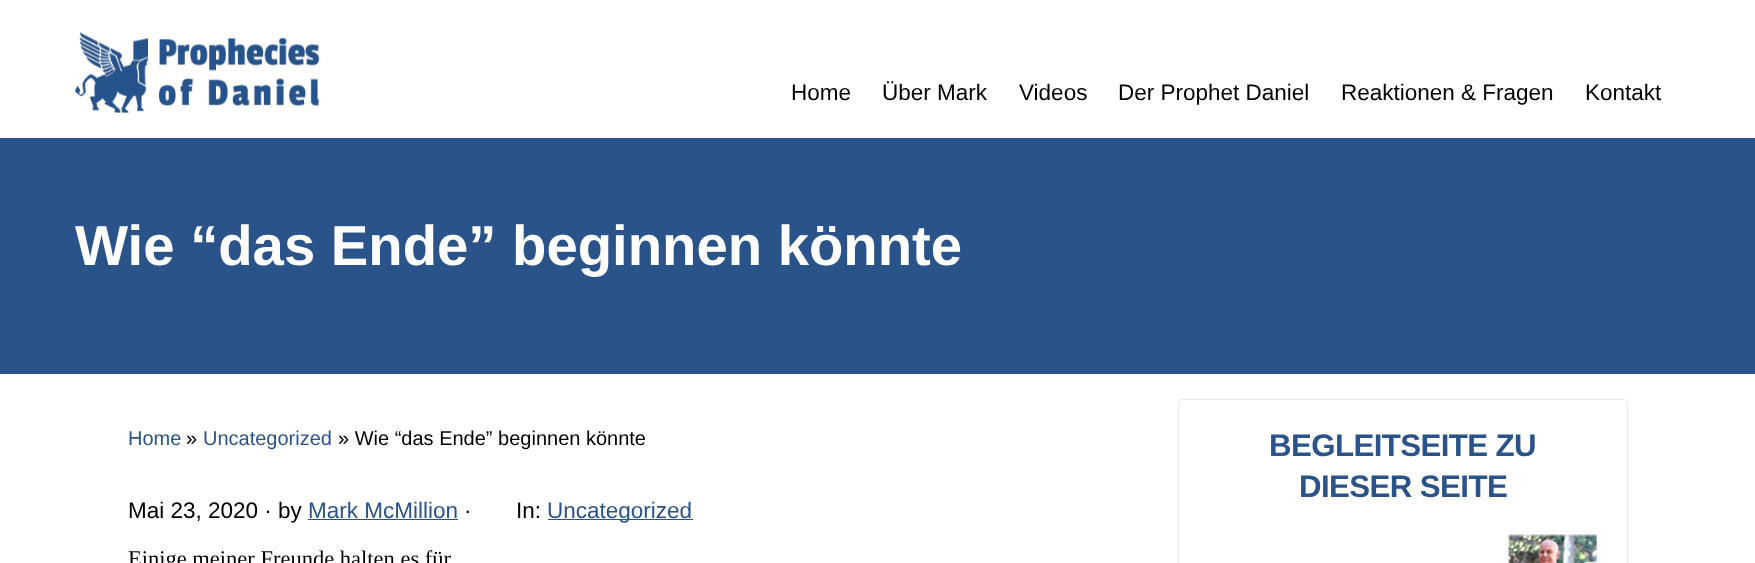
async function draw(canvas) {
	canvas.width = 1755;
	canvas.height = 563;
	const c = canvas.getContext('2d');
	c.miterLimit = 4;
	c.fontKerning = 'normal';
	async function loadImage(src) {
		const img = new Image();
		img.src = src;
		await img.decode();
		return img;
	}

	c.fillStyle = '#fff';
	c.fillRect(0, 0, 1755, 563);
	c.drawImage(await loadImage('img1.png'), 75, 32, 245, 81);
	c.font = '22.5px Liberation Sans';
	c.fillStyle = '#000';
	for (const [text, x, y] of [
		['Home', 791, 100],
		['Über Mark', 882, 100],
		['Videos', 1019, 100],
		['Der Prophet Daniel', 1118, 100],
		['Reaktionen & Fragen', 1341, 100],
		['Kontakt', 1585, 100],
	]) {
		c.fillText(text, x, y);
	}
	c.fillStyle = '#2a5389';
	c.fillRect(0, 138, 1755, 236);
	c.font = 'bold 56.25px Liberation Sans';
	c.fillStyle = '#fff';
	c.fillText('Wie “das Ende” beginnen könnte', 75, 265);
	c.font = '20px Liberation Sans';
	c.fillStyle = '#2a5389';
	c.fillText('Home', 128, 445);
	c.fillStyle = '#000';
	c.fillText('»', 186, 445);
	c.fillStyle = '#2a5389';
	c.fillText('Uncategorized', 203, 445);
	c.fillStyle = '#000';
	c.fillText('» Wie “das Ende” beginnen könnte', 338, 445);
	c.font = '22.5px Liberation Sans';
	c.fillText('Mai 23, 2020 · by', 128, 518);
	c.fillStyle = '#2a5389';
	c.fillText('Mark McMillion', 308, 518);
	c.fillRect(308, 519, 150, 1);
	c.fillStyle = '#000';
	c.fillText('·', 464, 518);
	c.fillText('In:', 516, 518);
	c.fillStyle = '#2a5389';
	c.fillRect(548, 519, 145, 1);
	c.fillText('Uncategorized', 547, 518);
	c.font = '22.5px Liberation Serif';
	c.fillStyle = '#000';
	c.fillText('Einige meiner Freunde halten es für', 128, 566);
	c.beginPath();
	c.roundRect(1178.5, 399.5, 449, 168, 3.5);
	c.strokeStyle = '#eaeaea';
	c.stroke();
	c.letterSpacing = '-0.6px';
	c.font = 'bold 31.25px Liberation Sans';
	c.fillStyle = '#2a5389';
	c.fillText('BEGLEITSEITE ZU', 1269, 456);
	c.fillText('DIESER SEITE', 1299, 497);
	c.drawImage(await loadImage('img2.png'), 1508, 531, 93, 32);
}

draw(document.querySelector('canvas'));
